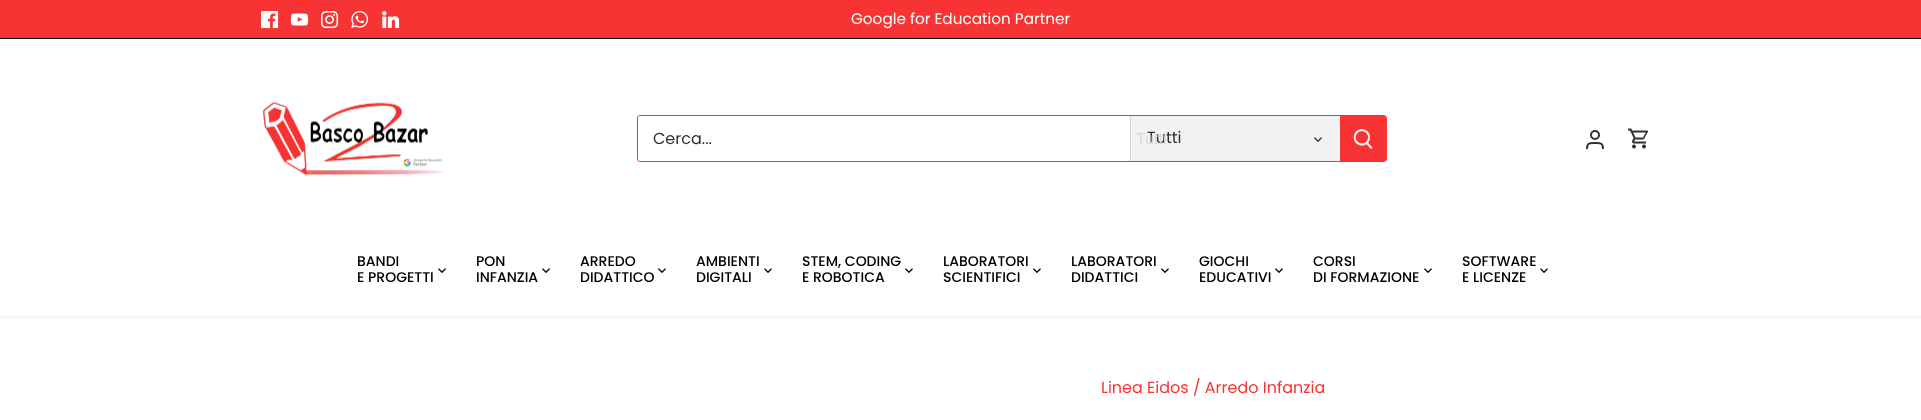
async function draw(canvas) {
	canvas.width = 1921;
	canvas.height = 420;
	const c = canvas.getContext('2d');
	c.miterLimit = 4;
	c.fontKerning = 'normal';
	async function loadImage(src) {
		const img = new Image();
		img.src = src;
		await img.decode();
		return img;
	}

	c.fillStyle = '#fff';
	c.fillRect(0, 0, 1921, 420);
	c.fillStyle = '#000';
	c.fillRect(0, 38, 1921, 1);
	c.save();
	c.beginPath();
	c.moveTo(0, 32);
	c.lineTo(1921, 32);
	c.lineTo(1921, 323);
	c.lineTo(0, 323);
	c.closePath();
	c.moveTo(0, 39);
	c.lineTo(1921, 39);
	c.lineTo(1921, 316);
	c.lineTo(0, 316);
	c.closePath();
	c.clip('evenodd');
	c.fillStyle = '#00000014';
	c.filter = 'blur(1.5px)';
	c.beginPath();
	c.rect(-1, 38, 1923, 279);
	c.fill();
	c.filter = 'none';
	c.restore();
	c.fillStyle = '#f73333';
	c.fillRect(0, 0, 1921, 38);
	c.drawImage(await loadImage('img1.png'), 261, 11, 18, 18);
	c.drawImage(await loadImage('img2.png'), 291, 13, 18, 13);
	c.drawImage(await loadImage('img3.png'), 321, 11, 18, 18);
	c.drawImage(await loadImage('img4.png'), 351, 11, 18, 17);
	c.drawImage(await loadImage('img5.png'), 382, 11, 18, 18);
	c.font = '15.25px Poppins';
	c.fillStyle = '#fff';
	c.fillText('Google for Education Partner', 851, 24);
	c.drawImage(await loadImage('img6.png'), 263, 101, 181, 75);
	c.beginPath();
	c.roundRect(637.5, 115.5, 749, 46, 2.5);
	c.strokeStyle = '#f73333';
	c.stroke();
	c.beginPath();
	c.roundRect(638, 116, 492, 45, [3, 0, 0, 3]);
	c.fill();
	c.font = '16px Poppins';
	c.fillStyle = '#303030';
	c.fillText('Cerca...', 653, 144);
	c.fillStyle = '#f2f2f2';
	c.fillRect(1131, 116, 209, 45);
	c.fillStyle = '#d4d4d4';
	c.fillRect(1130, 116, 1, 45);
	c.fillStyle = '#303030';
	c.fillText('Tutti', 1147, 143);
	c.font = '16px Liberation Sans';
	c.fillStyle = '#d8d8d8';
	c.fillText('Tutti', 1136, 144);
	c.drawImage(await loadImage('img7.png'), 1314, 137, 8, 5);
	c.fillStyle = '#f73333';
	c.beginPath();
	c.roundRect(1340, 116, 46, 45, [0, 2, 2, 0]);
	c.fill();
	c.drawImage(await loadImage('img8.png'), 1353, 129, 20, 20);
	c.beginPath();
	c.arc(1595, 135, 4, 0, 2 * Math.PI);
	c.strokeStyle = '#303030';
	c.lineWidth = 2;
	c.stroke();
	c.beginPath();
	c.moveTo(1603, 149);
	c.bezierCurveTo(1603, 142.5, 1600.5, 143, 1595, 143);
	c.bezierCurveTo(1589.5, 143, 1587, 142.5, 1587, 149);
	c.stroke();
	c.drawImage(await loadImage('img9.png'), 1628, 128, 20, 21);
	c.font = '500 14px Poppins';
	c.fillStyle = '#000';
	c.fillText('BANDI', 357, 266);
	c.drawImage(await loadImage('img10.png'), 438, 268, 8, 5);
	c.fillText('E PROGETTI', 357, 282);
	c.fillText('PON', 476, 266);
	c.drawImage(await loadImage('img10.png'), 542, 268, 8, 5);
	c.fillText('INFANZIA', 476, 282);
	c.fillText('ARREDO', 580, 266);
	c.drawImage(await loadImage('img10.png'), 658, 268, 8, 5);
	c.fillText('DIDATTICO', 580, 282);
	c.fillText('AMBIENTI', 696, 266);
	c.drawImage(await loadImage('img10.png'), 764, 268, 8, 5);
	c.fillText('DIGITALI', 696, 282);
	c.fillText('STEM, CODING', 802, 266);
	c.drawImage(await loadImage('img10.png'), 905, 268, 8, 5);
	c.fillText('E ROBOTICA', 802, 282);
	c.fillText('LABORATORI', 943, 266);
	c.drawImage(await loadImage('img10.png'), 1033, 268, 8, 5);
	c.fillText('SCIENTIFICI', 943, 282);
	c.fillText('LABORATORI', 1071, 266);
	c.drawImage(await loadImage('img10.png'), 1161, 268, 8, 5);
	c.fillText('DIDATTICI', 1071, 282);
	c.fillText('GIOCHI', 1199, 266);
	c.drawImage(await loadImage('img10.png'), 1275, 268, 8, 5);
	c.fillText('EDUCATIVI', 1199, 282);
	c.fillText('CORSI', 1313, 266);
	c.drawImage(await loadImage('img10.png'), 1424, 268, 8, 5);
	c.fillText('DI FORMAZIONE', 1313, 282);
	c.fillText('SOFTWARE', 1462, 266);
	c.drawImage(await loadImage('img10.png'), 1540, 268, 8, 5);
	c.fillText('E LICENZE', 1462, 282);
	c.font = '16px Poppins';
	c.fillStyle = '#f73333';
	c.fillText('Linea Eidos / Arredo Infanzia', 1101, 393);
}

draw(document.querySelector('canvas'));
